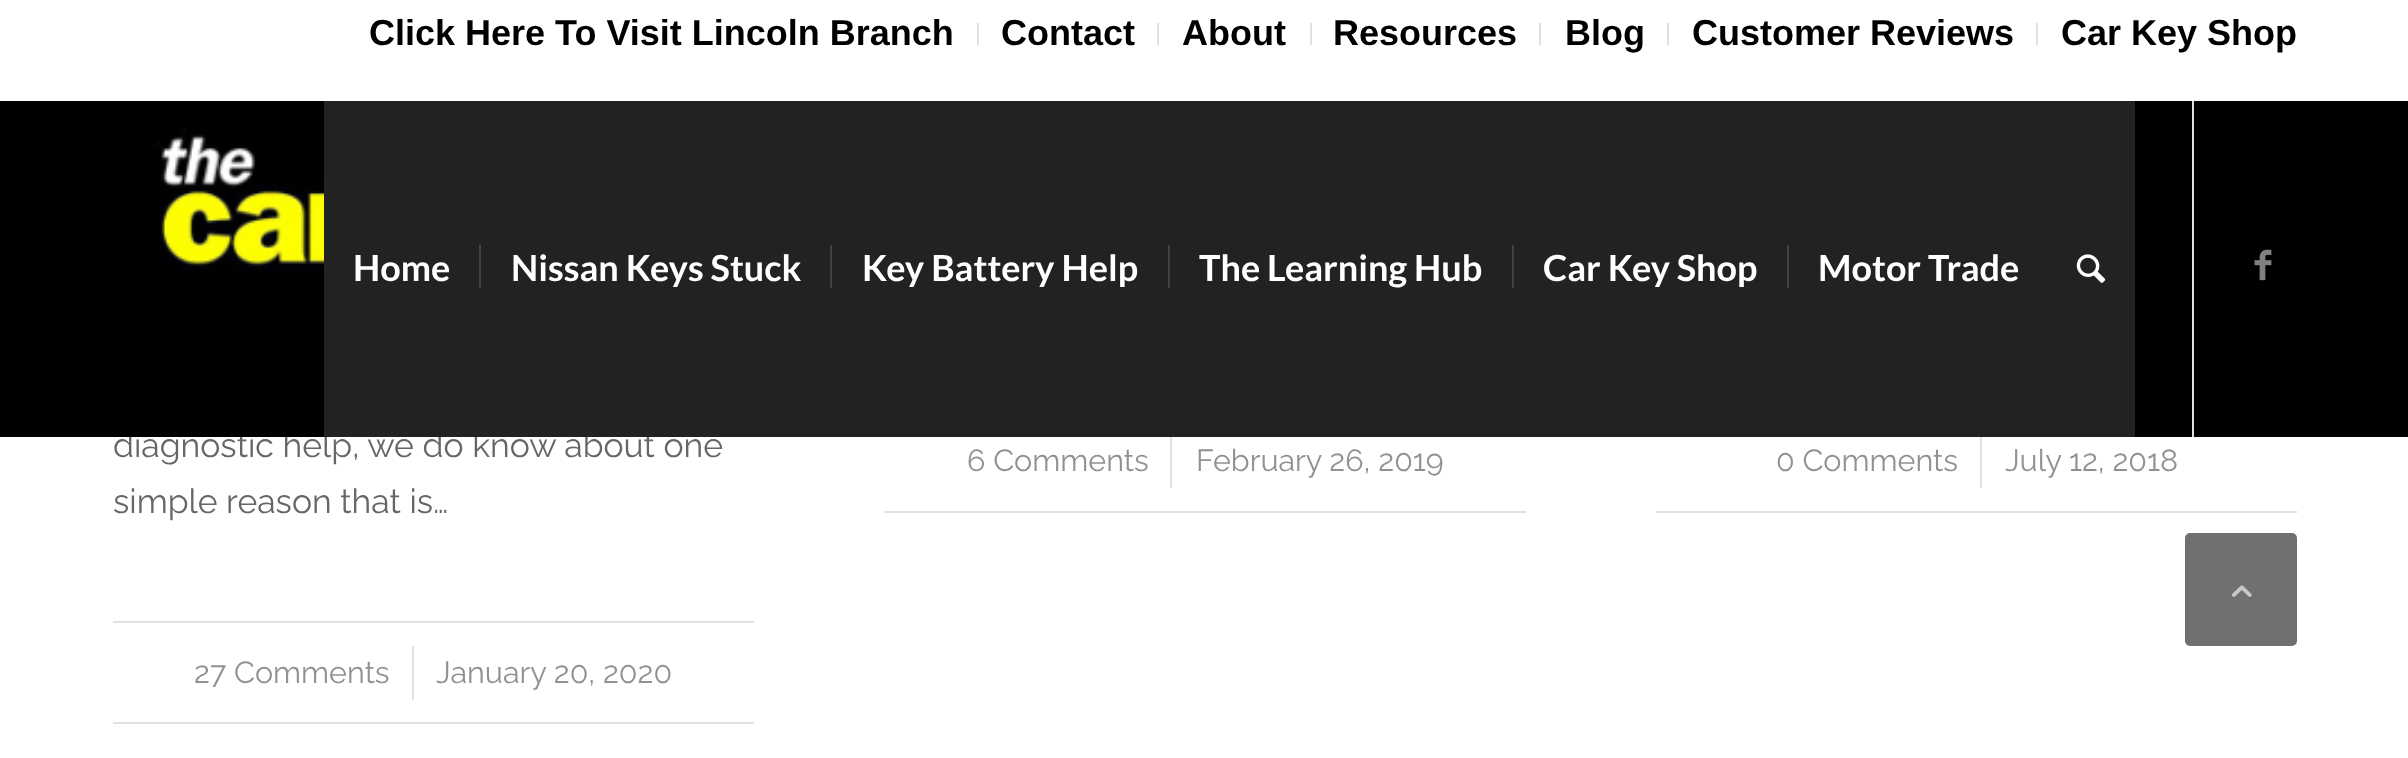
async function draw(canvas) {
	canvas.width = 2408;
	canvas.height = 758;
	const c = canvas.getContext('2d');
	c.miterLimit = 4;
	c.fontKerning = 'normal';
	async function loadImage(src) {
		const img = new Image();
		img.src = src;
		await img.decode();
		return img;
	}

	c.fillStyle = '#fff';
	c.fillRect(0, 0, 2408, 758);
	c.font = '100 33.75px Raleway';
	c.fillStyle = '#666';
	c.fillText('diagnostic help, we do know about one', 113, 457);
	for (const [x, y, w, h, color] of [
		[1170, 432, 2, 56, '#e1e1e1'],
		[1980, 432, 2, 56, '#e1e1e1'],
		[0, 101, 2408, 336, '#000'],
		[2192, 99, 2, 338, '#e1e1e1'],
		[2192, 99, 2, 2, '#fff'],
		[977, 23, 2, 22, '#e1e1e1'],
	]) {
		c.fillStyle = color;
		c.fillRect(x, y, w, h);
	}
	c.font = 'bold 36px Liberation Sans';
	c.fillStyle = '#000';
	c.fillText('Click Here To Visit Lincoln Branch', 369, 45);
	c.fillStyle = '#e1e1e1';
	c.fillRect(1157, 23, 2, 22);
	c.fillStyle = '#000';
	c.fillText('Contact', 1001, 45);
	c.fillStyle = '#e1e1e1';
	c.fillRect(1310, 23, 2, 22);
	c.fillStyle = '#000';
	c.fillText('About', 1182, 45);
	c.fillStyle = '#e1e1e1';
	c.fillRect(1539, 23, 2, 22);
	c.fillStyle = '#000';
	c.fillText('Resources', 1333, 45);
	c.fillStyle = '#e1e1e1';
	c.fillRect(1667, 23, 2, 22);
	c.fillStyle = '#000';
	c.fillText('Blog', 1565, 45);
	c.fillStyle = '#e1e1e1';
	c.fillRect(2036, 23, 2, 22);
	c.fillStyle = '#000';
	c.fillText('Customer Reviews', 1692, 45);
	c.fillText('Car Key Shop', 2061, 45);
	c.drawImage(await loadImage('img1.png'), 151, 128, 173, 187);
	c.fillStyle = '#222';
	c.fillRect(324, 101, 1811, 336);
	c.font = 'bold 36px Lato';
	c.fillStyle = '#fff';
	c.fillText('Home', 353, 281);
	c.fillText('Nissan Keys Stuck', 511, 281);
	c.fillStyle = '#424242';
	c.fillRect(479, 245, 2, 43);
	c.fillStyle = '#fff';
	c.fillText('Key Battery Help', 862, 281);
	c.fillStyle = '#424242';
	c.fillRect(830, 245, 2, 43);
	c.fillStyle = '#fff';
	c.fillText('The Learning Hub', 1199, 281);
	c.fillStyle = '#424242';
	c.fillRect(1168, 245, 2, 43);
	c.fillStyle = '#fff';
	c.fillText('Car Key Shop', 1543, 281);
	c.fillStyle = '#424242';
	c.fillRect(1512, 245, 2, 43);
	c.fillStyle = '#fff';
	c.fillText('Motor Trade', 1818, 281);
	c.fillStyle = '#424242';
	c.fillRect(1787, 245, 2, 43);
	c.drawImage(await loadImage('img2.png'), 2076, 254, 30, 29);
	c.drawImage(await loadImage('img3.png'), 2254, 249, 18, 32);
	c.font = '100 33.75px Raleway';
	c.fillStyle = '#666';
	c.fillText('simple reason that is…', 113, 513);
	c.fillStyle = '#e1e1e1';
	c.fillRect(113, 621, 641, 2);
	c.fillRect(113, 722, 641, 2);
	c.font = '100 30.5px Raleway';
	c.fillStyle = '#919191';
	c.fillText('27 Comments', 194, 683);
	c.fillStyle = '#e1e1e1';
	c.fillRect(412, 646, 2, 54);
	c.fillStyle = '#919191';
	c.fillText('January 20, 2020', 436, 683);
	c.fillStyle = '#e1e1e1';
	c.fillRect(884, 511, 642, 2);
	c.fillStyle = '#919191';
	c.fillText('6 Comments', 967, 471);
	c.fillText('February 26, 2019', 1196, 471);
	c.fillStyle = '#e1e1e1';
	c.fillRect(1656, 511, 641, 2);
	c.fillStyle = '#919191';
	c.fillText('0 Comments', 1776, 471);
	c.fillText('July 12, 2018', 2005, 471);
	c.fillStyle = '#707070';
	c.beginPath();
	c.roundRect(2186, 534, 110, 111, 4);
	c.fill();
	c.strokeStyle = '#707070';
	c.lineWidth = 2;
	c.stroke();
	c.drawImage(await loadImage('img4.png'), 2232, 585, 20, 12);
}

draw(document.querySelector('canvas'));
